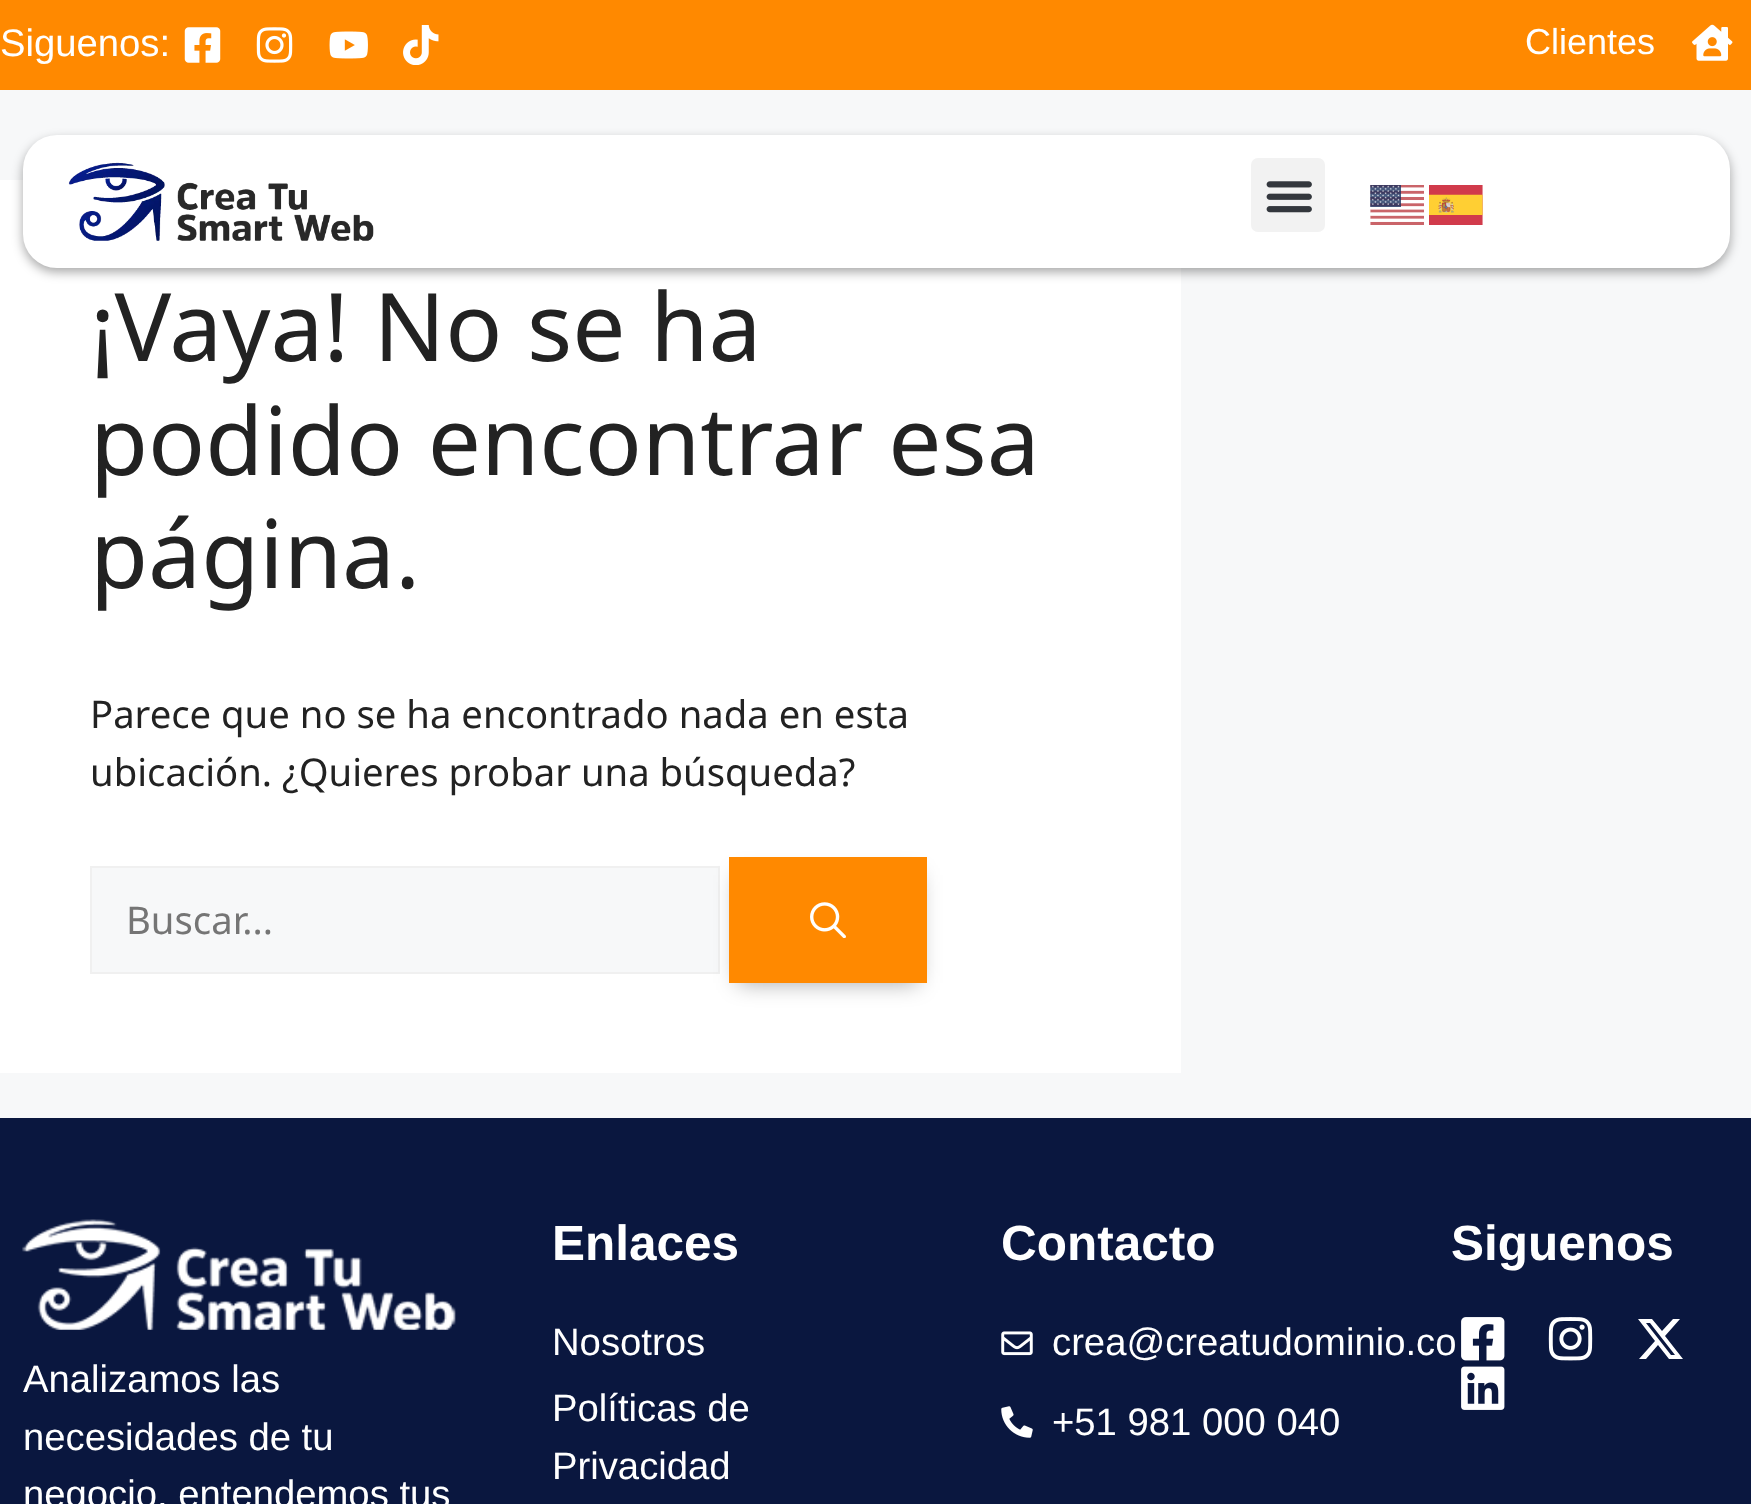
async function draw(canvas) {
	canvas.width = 1751;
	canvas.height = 1504;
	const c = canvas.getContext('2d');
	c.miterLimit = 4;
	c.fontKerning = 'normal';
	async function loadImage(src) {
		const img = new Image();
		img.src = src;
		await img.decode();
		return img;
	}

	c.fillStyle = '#f7f8f9';
	c.fillRect(0, 0, 1751, 1504);
	c.fillStyle = '#ff8900';
	c.fillRect(0, 0, 1751, 90);
	c.font = '38.25px Liberation Sans';
	c.fillStyle = '#fff';
	c.fillText('Siguenos:', 0, 56);
	c.drawImage(await loadImage('img1.png'), 184, 27, 37, 36);
	c.drawImage(await loadImage('img2.png'), 256, 27, 37, 36);
	c.drawImage(await loadImage('img3.png'), 329, 31, 39, 28);
	c.drawImage(await loadImage('img4.png'), 403, 25, 36, 40);
	c.font = '36px Liberation Sans';
	c.fillText('Clientes', 1525, 54);
	c.drawImage(await loadImage('img5.png'), 1692, 24, 41, 37);
	c.fillRect(0, 180, 1181, 893);
	c.fillStyle = '#00000059';
	c.filter = 'blur(5.5px)';
	c.beginPath();
	c.roundRect(23, 140, 1707, 132, 34);
	c.fill();
	c.filter = 'none';
	c.fillStyle = '#fff';
	c.beginPath();
	c.roundRect(23, 135, 1707, 133, 34);
	c.fill();
	c.drawImage(await loadImage('img6.png'), 68, 162, 306, 79);
	c.fillStyle = '#f2f2f2';
	c.beginPath();
	c.roundRect(1251, 158, 74, 74, 7);
	c.fill();
	c.drawImage(await loadImage('img7.png'), 1266, 181, 46, 32);
	c.drawImage(await loadImage('img8.png'), 1370, 185, 54, 40);
	c.drawImage(await loadImage('img9.png'), 1429, 185, 54, 40);
	c.font = '94.5px Noto Sans';
	c.fillStyle = '#222';
	for (const [text, x, y] of [
		['¡Vaya! No se ha', 90, 361],
		['podido encontrar esa', 90, 475],
		['página.', 90, 588],
	]) {
		c.fillText(text, x, y);
	}
	c.font = '38.25px Noto Sans';
	c.fillText('Parece que no se ha encontrado nada en esta', 90, 728);
	c.fillText('ubicación. ¿Quieres probar una búsqueda?', 90, 786);
	c.fillStyle = '#f7f8f9';
	c.beginPath();
	c.rect(91, 867, 628, 106);
	c.fill();
	c.strokeStyle = '#f0f0f0';
	c.lineWidth = 2;
	c.stroke();
	c.fillStyle = '#757575';
	c.fillText('Buscar...', 126, 934);
	c.fillStyle = '#00000059';
	c.filter = 'blur(11px)';
	c.beginPath();
	c.rect(738, 875, 180, 108);
	c.fill();
	c.filter = 'none';
	c.fillStyle = '#ff8900';
	c.fillRect(729, 857, 198, 126);
	c.drawImage(await loadImage('img10.png'), 810, 902, 36, 36);
	c.fillStyle = '#0a173f';
	c.fillRect(0, 1118, 1751, 386);
	c.drawImage(await loadImage('img11.png'), 22, 1219, 434, 111);
	c.font = '38.25px Liberation Sans';
	c.fillStyle = '#fff';
	for (const [text, x, y] of [
		['Analizamos las', 23, 1392],
		['necesidades de tu', 23, 1450],
		['negocio, entendemos tus', 23, 1507],
	]) {
		c.fillText(text, x, y);
	}
	c.font = 'bold 49.5px Liberation Sans';
	c.fillText('Enlaces', 552, 1260);
	c.font = '38.25px Liberation Sans';
	for (const [text, x, y] of [
		['Nosotros', 552, 1355],
		['Políticas de', 552, 1421],
		['Privacidad', 552, 1479],
	]) {
		c.fillText(text, x, y);
	}
	c.font = 'bold 49.5px Liberation Sans';
	c.fillText('Contacto', 1001, 1260);
	c.drawImage(await loadImage('img12.png'), 1001, 1331, 32, 25);
	c.font = '38.25px Liberation Sans';
	c.fillText('crea@creatudominio.co', 1052, 1355);
	c.drawImage(await loadImage('img13.png'), 1001, 1406, 32, 32);
	c.fillText('+51 981 000 040', 1052, 1435);
	c.font = 'bold 49.5px Liberation Sans';
	c.fillText('Siguenos', 1451, 1260);
	c.drawImage(await loadImage('img14.png'), 1461, 1317, 44, 44);
	c.drawImage(await loadImage('img15.png'), 1548, 1317, 45, 44);
	c.beginPath();
	c.moveTo(1673, 1319);
	c.lineTo(1680, 1319);
	c.lineTo(1665, 1336);
	c.lineTo(1683, 1359);
	c.lineTo(1669, 1359);
	c.lineTo(1658, 1345);
	c.lineTo(1646, 1359);
	c.lineTo(1639, 1359);
	c.lineTo(1655, 1341);
	c.lineTo(1638, 1319);
	c.lineTo(1652, 1319);
	c.lineTo(1662, 1331);
	c.closePath();
	c.moveTo(1671, 1355);
	c.lineTo(1675, 1355);
	c.lineTo(1650, 1323);
	c.lineTo(1646, 1323);
	c.closePath();
	c.fill();
	c.drawImage(await loadImage('img16.png'), 1461, 1366, 44, 44);
}

draw(document.querySelector('canvas'));
